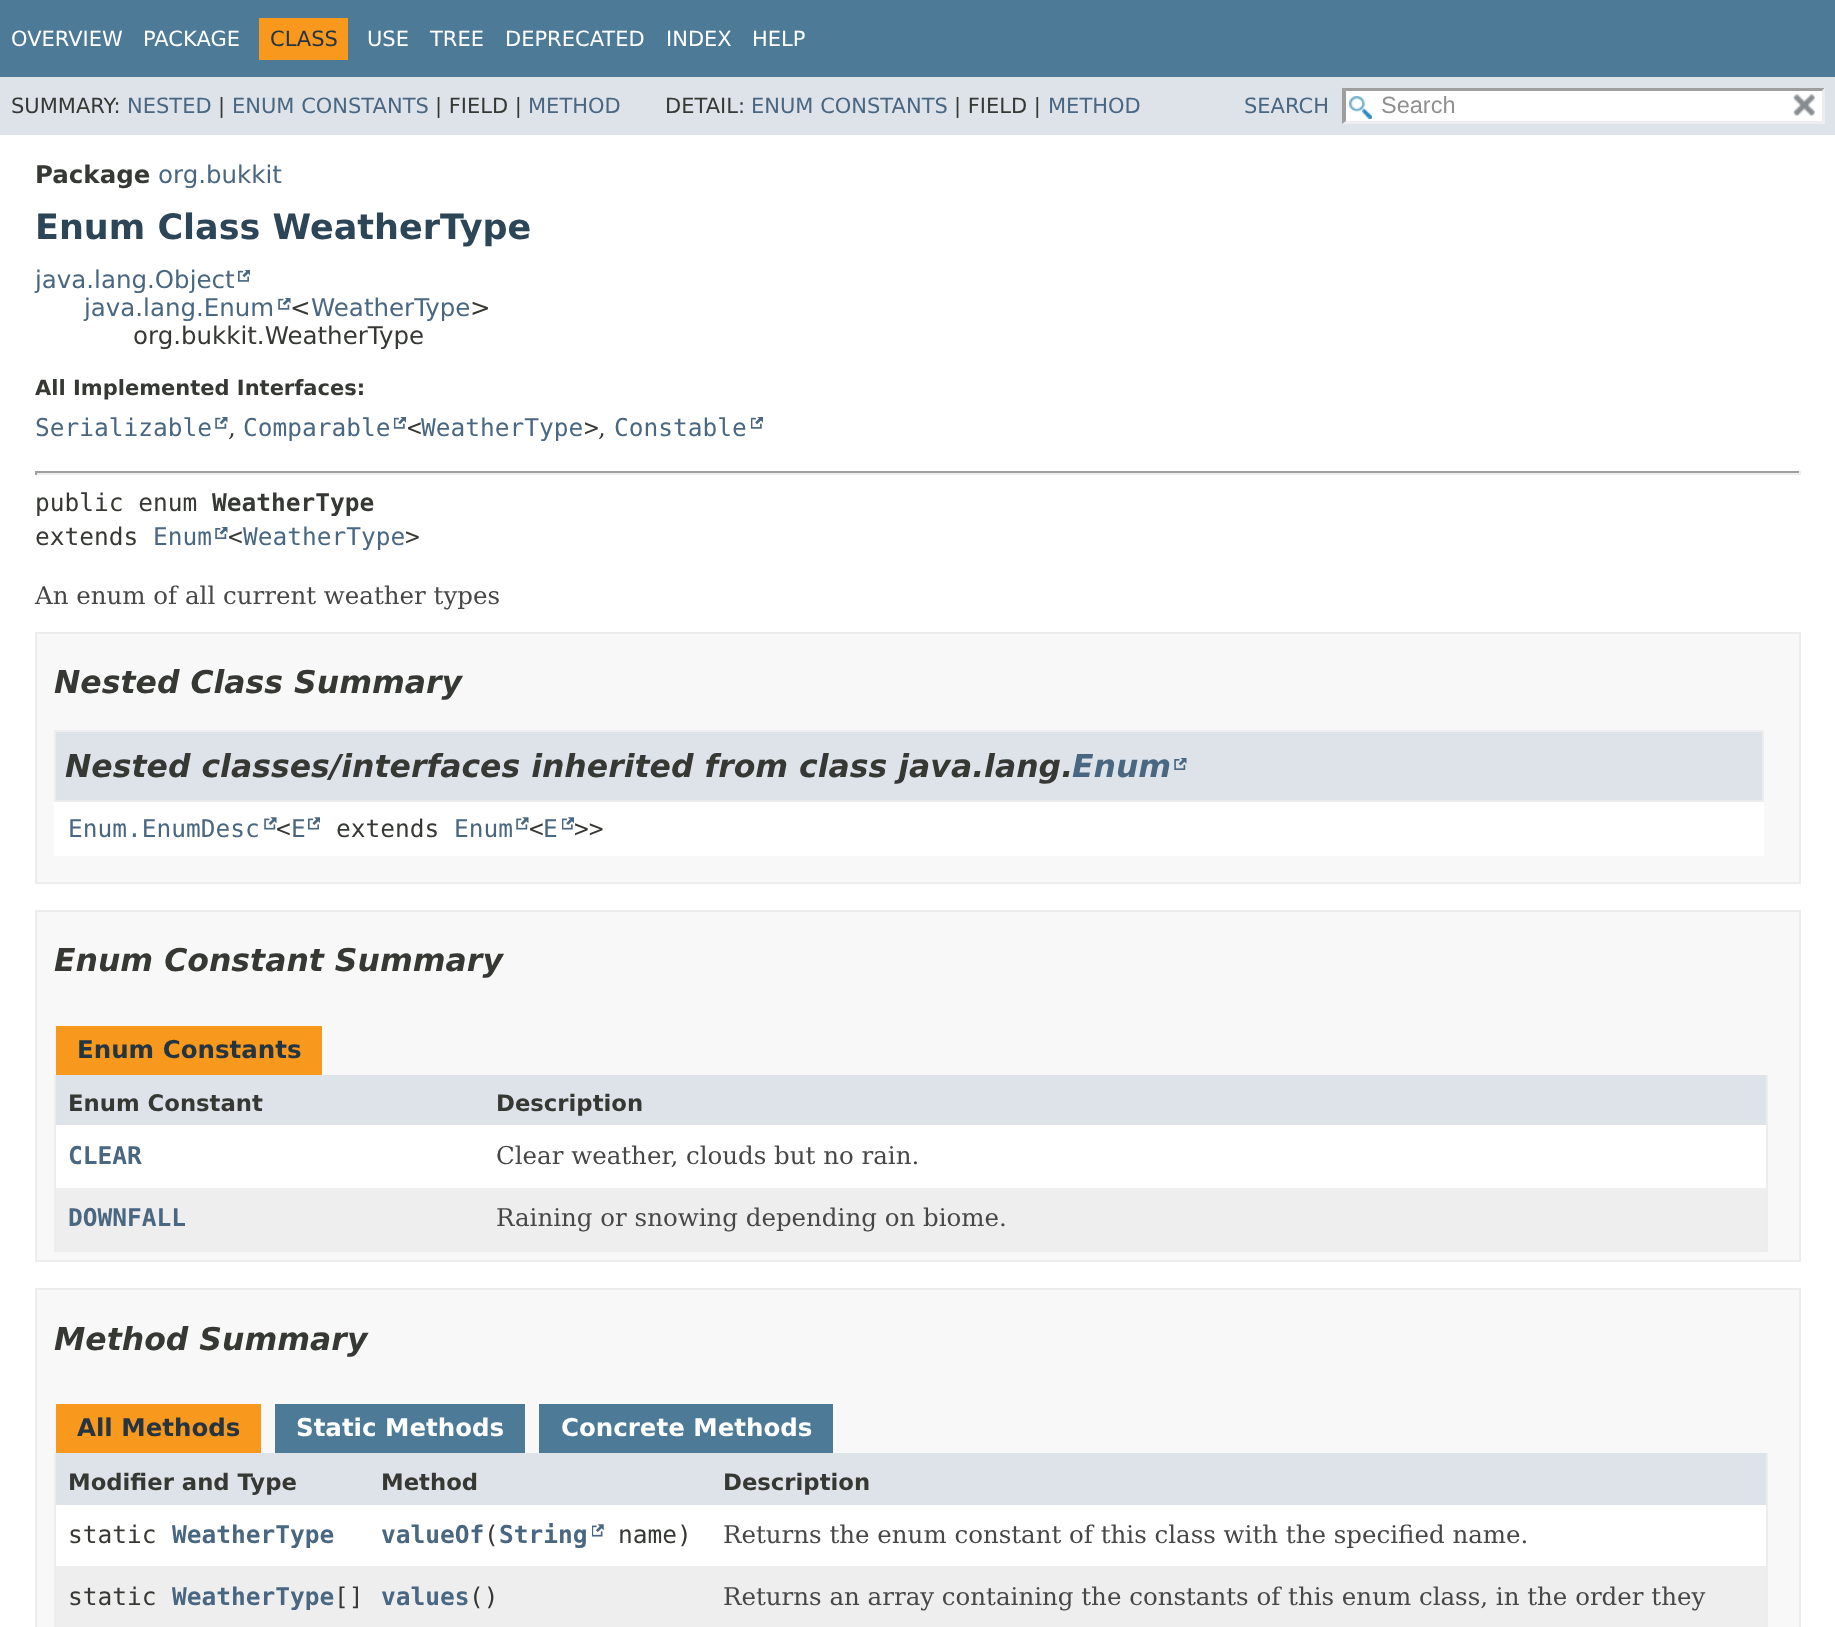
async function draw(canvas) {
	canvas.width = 1835;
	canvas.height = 1627;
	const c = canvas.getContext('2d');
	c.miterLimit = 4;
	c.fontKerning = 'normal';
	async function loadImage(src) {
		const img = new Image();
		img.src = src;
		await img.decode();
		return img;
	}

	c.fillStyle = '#fff';
	c.fillRect(0, 0, 1835, 1627);
	c.fillStyle = '#4d7a97';
	c.fillRect(0, 0, 1835, 77);
	c.font = '21px DejaVu Sans';
	c.fillStyle = '#fff';
	c.fillText('OVERVIEW', 11, 46);
	c.fillText('PACKAGE', 143, 46);
	c.fillStyle = '#f8981d';
	c.fillRect(259, 18, 89, 42);
	c.fillStyle = '#253441';
	c.fillText('CLASS', 270, 46);
	c.fillStyle = '#fff';
	for (const [text, x, y] of [
		['USE', 367, 46],
		['TREE', 430, 46],
		['DEPRECATED', 505, 46],
		['INDEX', 666, 46],
		['HELP', 752, 46],
	]) {
		c.fillText(text, x, y);
	}
	c.fillStyle = '#dee3e9';
	c.fillRect(0, 77, 1835, 58);
	c.fillStyle = '#353833';
	c.fillText('SUMMARY:', 11, 113);
	c.fillStyle = '#4a6782';
	c.fillText('NESTED', 127, 113);
	c.fillStyle = '#353833';
	c.fillText('|', 218, 113);
	c.fillStyle = '#4a6782';
	c.fillText('ENUM CONSTANTS', 232, 113);
	c.fillStyle = '#353833';
	c.fillText('| FIELD |', 435, 113);
	c.fillStyle = '#4a6782';
	c.fillText('METHOD', 528, 113);
	c.fillStyle = '#353833';
	c.fillText('DETAIL:', 665, 113);
	c.fillStyle = '#4a6782';
	c.fillText('ENUM CONSTANTS', 751, 113);
	c.fillStyle = '#353833';
	c.fillText('| FIELD |', 954, 113);
	c.fillStyle = '#4a6782';
	c.fillText('METHOD', 1048, 113);
	c.fillText('SEARCH', 1244, 113);
	c.fillStyle = '#fff';
	c.fillRect(1342, 88, 483, 36);
	c.drawImage(await loadImage('img1.png'), 1349, 96, 23, 23);
	c.fillStyle = '#9e9e9e';
	c.beginPath();
	c.moveTo(1342, 88);
	c.lineTo(1825, 88);
	c.lineTo(1822, 91);
	c.lineTo(1346, 91);
	c.closePath();
	c.fill();
	c.fillStyle = '#ededed';
	c.beginPath();
	c.moveTo(1825, 87.5);
	c.lineTo(1825, 124);
	c.lineTo(1822, 121);
	c.lineTo(1822, 91);
	c.closePath();
	c.fill();
	c.beginPath();
	c.moveTo(1825, 124);
	c.lineTo(1342, 124);
	c.lineTo(1346, 121);
	c.lineTo(1822, 121);
	c.closePath();
	c.fill();
	c.fillStyle = '#9e9e9e';
	c.beginPath();
	c.moveTo(1342, 124);
	c.lineTo(1342, 87.5);
	c.lineTo(1346, 91);
	c.lineTo(1346, 121);
	c.closePath();
	c.fill();
	c.font = '23.5px Liberation Sans';
	c.fillStyle = '#909090';
	c.fillText('Search', 1381, 113);
	c.drawImage(await loadImage('img2.png'), 1793, 93, 22, 23);
	c.font = 'bold 24.5px DejaVu Sans';
	c.fillStyle = '#353833';
	c.fillText('Package', 35, 183);
	c.font = '24.5px DejaVu Sans';
	c.fillStyle = '#4a6782';
	c.fillText('org.bukkit', 158, 183);
	c.font = 'bold 35px DejaVu Sans';
	c.fillStyle = '#2c4557';
	c.fillText('Enum Class WeatherType', 35, 239);
	c.font = '24.5px DejaVu Sans';
	c.fillStyle = '#4a6782';
	c.fillText('java.lang.Object', 35, 288);
	c.drawImage(await loadImage('img3.png'), 238, 270, 12, 12);
	c.fillText('java.lang.Enum', 84, 316);
	c.drawImage(await loadImage('img4.png'), 278, 298, 13, 12);
	c.fillStyle = '#353833';
	c.fillText('<', 290, 316);
	c.fillStyle = '#4a6782';
	c.fillText('WeatherType', 311, 316);
	c.fillStyle = '#353833';
	c.fillText('>', 470, 316);
	c.fillText('org.bukkit.WeatherType', 133, 344);
	c.font = 'bold 21px DejaVu Sans';
	c.fillText('All Implemented Interfaces:', 35, 395);
	c.font = '24.5px DejaVu Sans Mono';
	c.fillStyle = '#4a6782';
	c.fillText('Serializable', 35, 436);
	c.drawImage(await loadImage('img4.png'), 215, 417, 13, 12);
	c.font = '24.5px DejaVu Serif';
	c.fillStyle = '#353833';
	c.fillText(',', 228, 436);
	c.font = '24.5px DejaVu Sans Mono';
	c.fillStyle = '#4a6782';
	c.fillText('Comparable', 243, 436);
	c.drawImage(await loadImage('img5.png'), 394, 417, 12, 12);
	c.fillStyle = '#353833';
	c.fillText('<', 407, 436);
	c.fillStyle = '#4a6782';
	c.fillText('WeatherType', 421, 436);
	c.fillStyle = '#353833';
	c.fillText('>', 584, 436);
	c.font = '24.5px DejaVu Serif';
	c.fillText(',', 598, 436);
	c.font = '24.5px DejaVu Sans Mono';
	c.fillStyle = '#4a6782';
	c.fillText('Constable', 614, 436);
	c.drawImage(await loadImage('img5.png'), 751, 417, 12, 12);
	for (const [x, y, w, h, color] of [
		[35, 471, 1766, 2, '#9f9f9f'],
		[1799, 471, 2, 4, '#eee'],
		[35, 473, 1766, 2, '#eee'],
		[35, 471, 2, 4, '#9f9f9f'],
	]) {
		c.fillStyle = color;
		c.fillRect(x, y, w, h);
	}
	c.fillStyle = '#353833';
	c.fillText('public enum', 35, 511);
	c.font = 'bold 24.5px DejaVu Sans Mono';
	c.fillText('WeatherType', 212, 511);
	c.font = '24.5px DejaVu Sans Mono';
	c.fillText('extends', 35, 545);
	c.fillStyle = '#4a6782';
	c.fillText('Enum', 153, 545);
	c.drawImage(await loadImage('img6.png'), 215, 527, 13, 12);
	c.fillStyle = '#353833';
	c.fillText('<', 228, 545);
	c.fillStyle = '#4a6782';
	c.fillText('WeatherType', 243, 545);
	c.fillStyle = '#353833';
	c.fillText('>', 405, 545);
	c.font = '24.5px DejaVu Serif';
	c.fillStyle = '#474747';
	c.fillText('An enum of all current weather types', 35, 604);
	c.fillStyle = '#f8f8f8';
	c.beginPath();
	c.rect(36, 633, 1764, 250);
	c.fill();
	c.strokeStyle = '#ededed';
	c.lineWidth = 2;
	c.stroke();
	c.font = 'italic bold 31.5px DejaVu Sans';
	c.fillStyle = '#353833';
	c.fillText('Nested Class Summary', 54, 693);
	c.fillStyle = '#fff';
	c.fillRect(54, 802, 1710, 54);
	c.fillStyle = '#dee3e9';
	c.beginPath();
	c.rect(55, 731, 1708, 70);
	c.fill();
	c.stroke();
	c.fillStyle = '#353833';
	c.fillText('Nested classes/interfaces inherited from class java.lang.', 65, 777);
	c.fillStyle = '#4a6782';
	c.fillText('Enum', 1072, 777);
	c.drawImage(await loadImage('img7.png'), 1174, 758, 13, 12);
	c.font = '24.5px DejaVu Sans Mono';
	c.fillText('Enum.EnumDesc', 68, 837);
	c.drawImage(await loadImage('img8.png'), 264, 817, 13, 13);
	c.fillStyle = '#353833';
	c.fillText('<', 276, 837);
	c.fillStyle = '#4a6782';
	c.fillText('E', 291, 837);
	c.drawImage(await loadImage('img9.png'), 308, 817, 12, 13);
	c.fillStyle = '#353833';
	c.fillText('extends', 336, 837);
	c.fillStyle = '#4a6782';
	c.fillText('Enum', 454, 837);
	c.drawImage(await loadImage('img8.png'), 516, 817, 13, 13);
	c.fillStyle = '#353833';
	c.fillText('<', 529, 837);
	c.fillStyle = '#4a6782';
	c.fillText('E', 543, 837);
	c.drawImage(await loadImage('img10.png'), 562, 817, 12, 13);
	c.fillStyle = '#353833';
	c.fillText('>>', 574, 837);
	c.fillStyle = '#f8f8f8';
	c.beginPath();
	c.rect(36, 911, 1764, 350);
	c.fill();
	c.stroke();
	c.font = 'italic bold 31.5px DejaVu Sans';
	c.fillStyle = '#353833';
	c.fillText('Enum Constant Summary', 54, 971);
	c.fillStyle = '#f8981d';
	c.fillRect(56, 1026, 266, 49);
	c.font = 'bold 24.5px DejaVu Sans';
	c.fillStyle = '#253441';
	c.fillText('Enum Constants', 77, 1058);
	for (const [x, y, w, h, color] of [
		[1766, 1075, 2, 176, '#ededed'],
		[54, 1250, 1714, 2, '#ededed'],
		[54, 1075, 2, 176, '#ededed'],
		[56, 1075, 1710, 50, '#dee3e9'],
	]) {
		c.fillStyle = color;
		c.fillRect(x, y, w, h);
	}
	c.font = 'bold 22.75px DejaVu Sans';
	c.fillStyle = '#353833';
	c.fillText('Enum Constant', 68, 1111);
	c.fillText('Description', 496, 1111);
	c.fillStyle = '#fff';
	c.fillRect(56, 1125, 1710, 63);
	c.font = 'bold 24.5px DejaVu Sans Mono';
	c.fillStyle = '#4a6782';
	c.fillText('CLEAR', 68, 1164);
	c.font = '24.5px DejaVu Serif';
	c.fillStyle = '#474747';
	c.fillText('Clear weather, clouds but no rain.', 496, 1164);
	c.fillStyle = '#eeeeef';
	c.fillRect(56, 1188, 1710, 62);
	c.font = 'bold 24.5px DejaVu Sans Mono';
	c.fillStyle = '#4a6782';
	c.fillText('DOWNFALL', 68, 1226);
	c.font = '24.5px DejaVu Serif';
	c.fillStyle = '#474747';
	c.fillText('Raining or snowing depending on biome.', 496, 1226);
	c.fillStyle = '#f8f8f8';
	c.beginPath();
	c.rect(36, 1289, 1764, 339);
	c.fill();
	c.stroke();
	c.font = 'italic bold 31.5px DejaVu Sans';
	c.fillStyle = '#353833';
	c.fillText('Method Summary', 54, 1350);
	c.fillStyle = '#f8981d';
	c.fillRect(56, 1404, 205, 49);
	c.font = 'bold 24.5px DejaVu Sans';
	c.fillStyle = '#253441';
	c.fillText('All Methods', 77, 1436);
	c.fillStyle = '#4d7a97';
	c.fillRect(275, 1404, 250, 49);
	c.fillStyle = '#fff';
	c.fillText('Static Methods', 296, 1436);
	c.fillStyle = '#4d7a97';
	c.fillRect(539, 1404, 294, 49);
	c.fillStyle = '#fff';
	c.fillText('Concrete Methods', 561, 1436);
	for (const [x, y, w, h, color] of [
		[1766, 1453, 2, 174, '#ededed'],
		[54, 1453, 2, 174, '#ededed'],
		[56, 1453, 1710, 52, '#dee3e9'],
	]) {
		c.fillStyle = color;
		c.fillRect(x, y, w, h);
	}
	c.font = 'bold 22.75px DejaVu Sans';
	c.fillStyle = '#353833';
	for (const [text, x, y] of [
		['Modifier and Type', 68, 1490],
		['Method', 381, 1490],
		['Description', 723, 1490],
	]) {
		c.fillText(text, x, y);
	}
	c.fillStyle = '#fff';
	c.fillRect(56, 1505, 1710, 61);
	c.font = '24.5px DejaVu Sans Mono';
	c.fillStyle = '#353833';
	c.fillText('static', 68, 1543);
	c.font = 'bold 24.5px DejaVu Sans Mono';
	c.fillStyle = '#4a6782';
	c.fillText('WeatherType', 172, 1543);
	c.fillText('valueOf String', 381, 1543);
	c.font = '24.5px DejaVu Sans Mono';
	c.fillStyle = '#353833';
	c.fillText('(', 484, 1543);
	c.drawImage(await loadImage('img11.png'), 592, 1524, 12, 13);
	c.fillText('name)', 618, 1543);
	c.font = '24.5px DejaVu Serif';
	c.fillStyle = '#474747';
	c.fillText('Returns the enum constant of this class with the specified name.', 723, 1543);
	c.fillStyle = '#eeeeef';
	c.fillRect(56, 1566, 1710, 61);
	c.font = '24.5px DejaVu Sans Mono';
	c.fillStyle = '#353833';
	c.fillText('static', 68, 1605);
	c.font = 'bold 24.5px DejaVu Sans Mono';
	c.fillStyle = '#4a6782';
	c.fillText('WeatherType', 172, 1605);
	c.font = '24.5px DejaVu Sans Mono';
	c.fillStyle = '#353833';
	c.fillText('[]', 334, 1605);
	c.font = 'bold 24.5px DejaVu Sans Mono';
	c.fillStyle = '#4a6782';
	c.fillText('values', 381, 1605);
	c.font = '24.5px DejaVu Sans Mono';
	c.fillStyle = '#353833';
	c.fillText('()', 469, 1605);
	c.font = '24.5px DejaVu Serif';
	c.fillStyle = '#474747';
	c.fillText('Returns an array containing the constants of this enum class, in the order they', 723, 1605);
}

draw(document.querySelector('canvas'));
